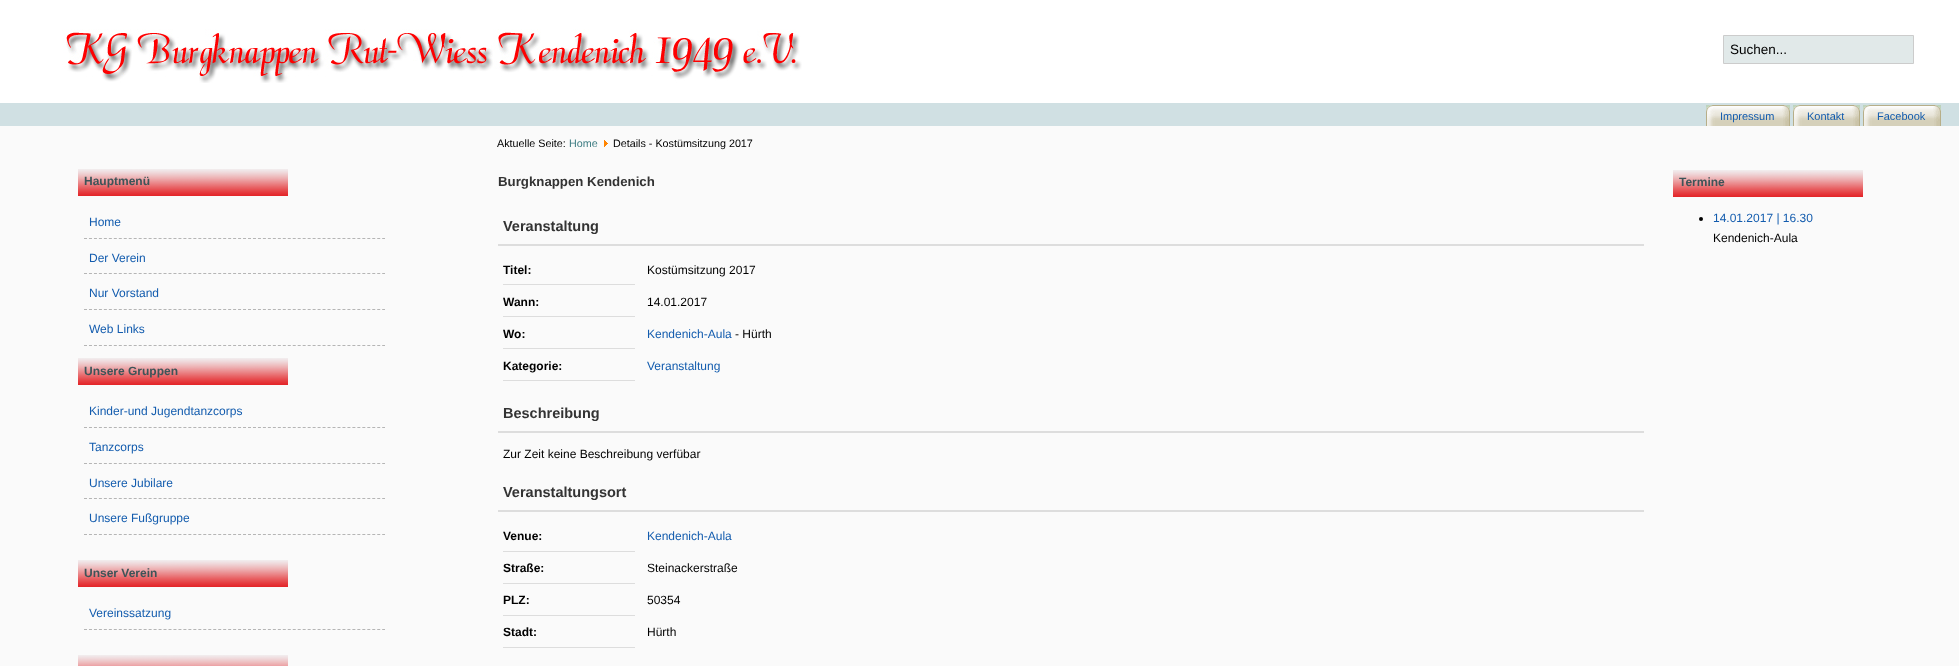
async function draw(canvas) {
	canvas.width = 1959;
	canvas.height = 666;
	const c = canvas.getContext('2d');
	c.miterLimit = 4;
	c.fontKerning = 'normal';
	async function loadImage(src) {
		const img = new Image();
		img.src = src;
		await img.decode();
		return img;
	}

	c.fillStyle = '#fff';
	c.fillRect(0, 0, 1959, 666);
	c.drawImage(await loadImage('img1.png'), 62, 29, 740, 54);
	c.fillStyle = '#e1e9e9';
	c.beginPath();
	c.rect(1723.5, 35.5, 190, 28);
	c.fill();
	c.strokeStyle = '#ccc';
	c.stroke();
	c.font = '13.5px Liberation Sans';
	c.fillStyle = '#000';
	c.fillText('Suchen...', 1730, 54);
	c.fillStyle = '#d0e0e3';
	c.fillRect(0, 103, 1959, 23);
	c.drawImage(await loadImage('img2.png'), 1706, 105, 9, 21);
	c.drawImage(await loadImage('img3.png'), 1715, 105, 75, 21);
	c.font = '11px Liberation Sans';
	c.fillStyle = '#135cae';
	c.fillText('Impressum', 1720, 120);
	c.drawImage(await loadImage('img2.png'), 1793, 105, 9, 21);
	c.drawImage(await loadImage('img4.png'), 1802, 105, 58, 21);
	c.fillText('Kontakt', 1807, 120);
	c.drawImage(await loadImage('img2.png'), 1863, 105, 9, 21);
	c.drawImage(await loadImage('img5.png'), 1872, 105, 69, 21);
	c.fillText('Facebook', 1877, 120);
	c.fillStyle = '#fafafa';
	c.fillRect(0, 126, 1959, 540);
	c.font = '10.75px Liberation Sans';
	c.fillStyle = '#000';
	c.fillText('Aktuelle Seite:', 497, 147);
	c.fillStyle = '#3d7c82';
	c.fillText('Home', 569, 147);
	c.drawImage(await loadImage('img6.png'), 604, 140, 4, 7);
	c.fillStyle = '#000';
	c.fillText('Details - Kostümsitzung 2017', 613, 147);
	c.drawImage(await loadImage('img7.png'), 78, 169, 210, 27);
	c.font = 'bold 12px Liberation Sans';
	c.fillStyle = '#3e5458';
	c.fillText('Hauptmenü', 84, 185);
	c.beginPath();
	c.moveTo(84, 238.5);
	c.lineTo(385, 238.5);
	c.strokeStyle = '#b5b5b5';
	c.setLineDash([3, 1.97]);
	c.stroke();
	c.font = '12px Liberation Sans';
	c.fillStyle = '#135cae';
	c.fillText('Home', 89, 226);
	c.beginPath();
	c.moveTo(84, 273.5);
	c.lineTo(385, 273.5);
	c.stroke();
	c.fillText('Der Verein', 89, 262);
	c.beginPath();
	c.moveTo(84, 309.5);
	c.lineTo(385, 309.5);
	c.stroke();
	c.fillText('Nur Vorstand', 89, 297);
	c.beginPath();
	c.moveTo(84, 345.5);
	c.lineTo(385, 345.5);
	c.stroke();
	c.fillText('Web Links', 89, 333);
	c.drawImage(await loadImage('img7.png'), 78, 358, 210, 27);
	c.font = 'bold 12px Liberation Sans';
	c.fillStyle = '#3e5458';
	c.fillText('Unsere Gruppen', 84, 375);
	c.beginPath();
	c.moveTo(84, 427.5);
	c.lineTo(385, 427.5);
	c.stroke();
	c.font = '12px Liberation Sans';
	c.fillStyle = '#135cae';
	c.fillText('Kinder-und Jugendtanzcorps', 89, 415);
	c.beginPath();
	c.moveTo(84, 463.5);
	c.lineTo(385, 463.5);
	c.stroke();
	c.fillText('Tanzcorps', 89, 451);
	c.beginPath();
	c.moveTo(84, 498.5);
	c.lineTo(385, 498.5);
	c.stroke();
	c.fillText('Unsere Jubilare', 89, 487);
	c.beginPath();
	c.moveTo(84, 534.5);
	c.lineTo(385, 534.5);
	c.stroke();
	c.fillText('Unsere Fußgruppe', 89, 522);
	c.drawImage(await loadImage('img7.png'), 78, 560, 210, 27);
	c.font = 'bold 12px Liberation Sans';
	c.fillStyle = '#3e5458';
	c.fillText('Unser Verein', 84, 577);
	c.beginPath();
	c.moveTo(84, 629.5);
	c.lineTo(385, 629.5);
	c.stroke();
	c.font = '12px Liberation Sans';
	c.fillStyle = '#135cae';
	c.fillText('Vereinssatzung', 89, 617);
	c.drawImage(await loadImage('img8.png'), 78, 655, 210, 11);
	c.font = 'bold 13.25px Liberation Sans';
	c.fillStyle = '#333';
	c.fillText('Burgknappen Kendenich', 498, 186);
	c.fillStyle = '#ddd';
	c.fillRect(498, 244, 1146, 2);
	c.font = 'bold 14.5px Liberation Sans';
	c.fillStyle = '#333';
	c.fillText('Veranstaltung', 503, 231);
	c.fillStyle = '#ddd';
	c.fillRect(503, 284, 132, 1);
	c.font = 'bold 12px Liberation Sans';
	c.fillStyle = '#000';
	c.fillText('Titel:', 503, 274);
	c.font = '12px Liberation Sans';
	c.fillText('Kostümsitzung 2017', 647, 274);
	c.fillStyle = '#ddd';
	c.fillRect(503, 316, 132, 1);
	c.font = 'bold 12px Liberation Sans';
	c.fillStyle = '#000';
	c.fillText('Wann:', 503, 306);
	c.font = '12px Liberation Sans';
	c.fillText('14.01.2017', 647, 306);
	c.fillStyle = '#ddd';
	c.fillRect(503, 348, 132, 1);
	c.font = 'bold 12px Liberation Sans';
	c.fillStyle = '#000';
	c.fillText('Wo:', 503, 338);
	c.font = '12px Liberation Sans';
	c.fillStyle = '#135cae';
	c.fillText('Kendenich-Aula', 647, 338);
	c.fillStyle = '#000';
	c.fillText('- Hürth', 735, 338);
	c.fillStyle = '#ddd';
	c.fillRect(503, 380, 132, 1);
	c.font = 'bold 12px Liberation Sans';
	c.fillStyle = '#000';
	c.fillText('Kategorie:', 503, 370);
	c.font = '12px Liberation Sans';
	c.fillStyle = '#135cae';
	c.fillText('Veranstaltung', 647, 370);
	c.fillStyle = '#ddd';
	c.fillRect(498, 431, 1146, 2);
	c.font = 'bold 14.5px Liberation Sans';
	c.fillStyle = '#333';
	c.fillText('Beschreibung', 503, 418);
	c.font = '12px Liberation Sans';
	c.fillStyle = '#000';
	c.fillText('Zur Zeit keine Beschreibung verfübar', 503, 458);
	c.fillStyle = '#ddd';
	c.fillRect(498, 510, 1146, 2);
	c.font = 'bold 14.5px Liberation Sans';
	c.fillStyle = '#333';
	c.fillText('Veranstaltungsort', 503, 497);
	c.fillStyle = '#ddd';
	c.fillRect(503, 551, 132, 1);
	c.font = 'bold 12px Liberation Sans';
	c.fillStyle = '#000';
	c.fillText('Venue:', 503, 540);
	c.font = '12px Liberation Sans';
	c.fillStyle = '#135cae';
	c.fillText('Kendenich-Aula', 647, 540);
	c.fillStyle = '#ddd';
	c.fillRect(503, 583, 132, 1);
	c.font = 'bold 12px Liberation Sans';
	c.fillStyle = '#000';
	c.fillText('Straße:', 503, 572);
	c.font = '12px Liberation Sans';
	c.fillText('Steinackerstraße', 647, 572);
	c.fillStyle = '#ddd';
	c.fillRect(503, 615, 132, 1);
	c.font = 'bold 12px Liberation Sans';
	c.fillStyle = '#000';
	c.fillText('PLZ:', 503, 604);
	c.font = '12px Liberation Sans';
	c.fillText('50354', 647, 604);
	c.fillStyle = '#ddd';
	c.fillRect(503, 647, 132, 1);
	c.font = 'bold 12px Liberation Sans';
	c.fillStyle = '#000';
	c.fillText('Stadt:', 503, 636);
	c.font = '12px Liberation Sans';
	c.fillText('Hürth', 647, 636);
	c.drawImage(await loadImage('img9.png'), 1673, 170, 190, 27);
	c.font = 'bold 12px Liberation Sans';
	c.fillStyle = '#3e5458';
	c.fillText('Termine', 1679, 186);
	c.fillStyle = '#000';
	c.beginPath();
	c.arc(1701, 219, 2, 0, 2 * Math.PI);
	c.fill();
	c.font = '12px Liberation Sans';
	c.fillStyle = '#135cae';
	c.fillText('14.01.2017 | 16.30', 1713, 222);
	c.fillStyle = '#000';
	c.fillText('Kendenich-Aula', 1713, 242);
}

draw(document.querySelector('canvas'));
